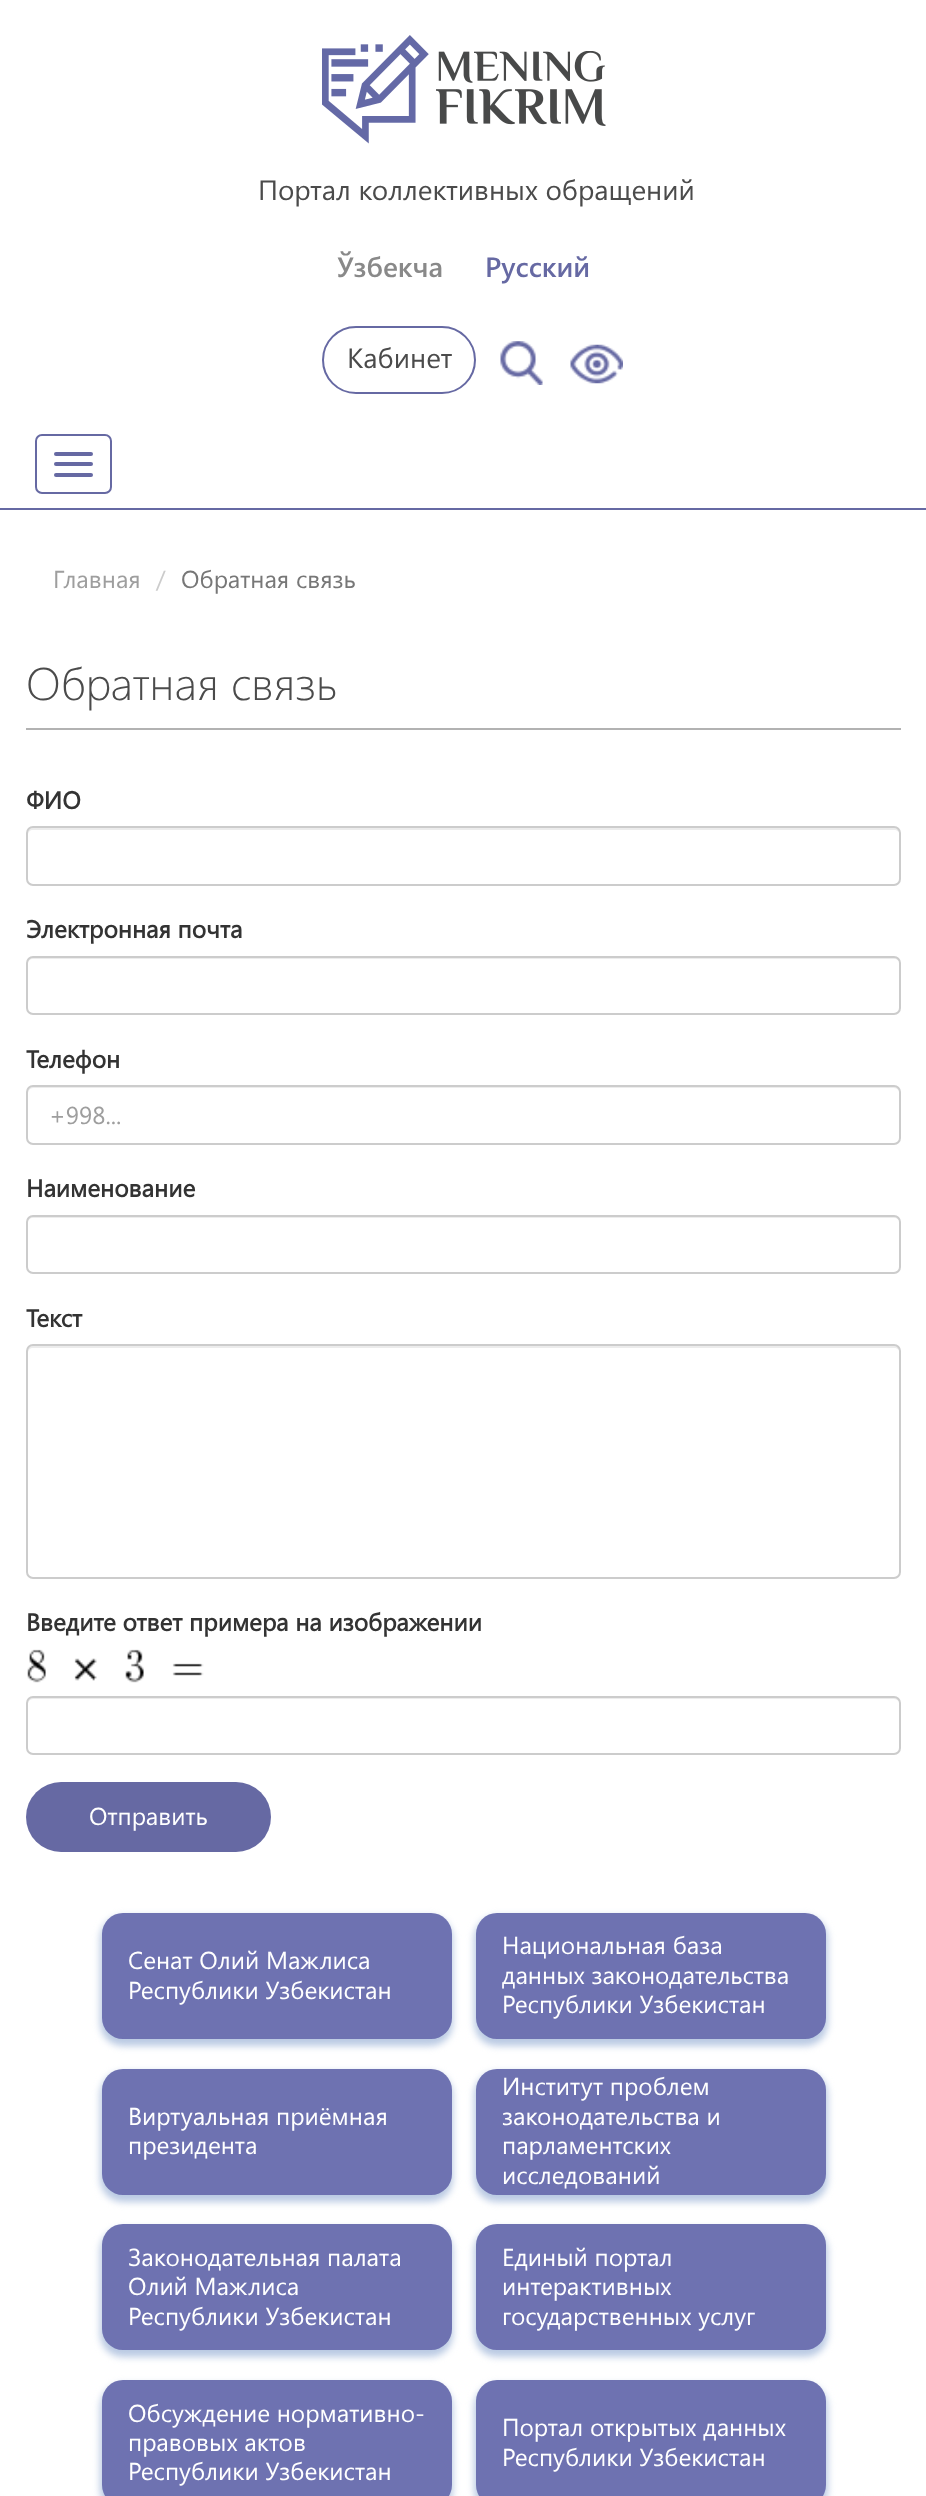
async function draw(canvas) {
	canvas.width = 926;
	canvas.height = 2496;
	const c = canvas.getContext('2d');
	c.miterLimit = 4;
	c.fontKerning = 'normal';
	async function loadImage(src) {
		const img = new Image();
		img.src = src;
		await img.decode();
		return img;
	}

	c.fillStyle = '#fff';
	c.fillRect(0, 0, 926, 2496);
	c.drawImage(await loadImage('img1.png'), 322, 35, 107, 109);
	c.drawImage(await loadImage('img2.png'), 436, 51, 170, 75);
	c.font = '28px Segoe UI';
	c.fillStyle = '#4b4b4b';
	c.fillText('Портал коллективных обращений', 258, 200);
	c.font = '600 28px Segoe UI';
	c.fillStyle = '#898989';
	c.fillText('Ўзбекча', 337, 277);
	c.fillStyle = '#6669a3';
	c.fillText('Русский', 485, 277);
	c.beginPath();
	c.roundRect(323, 327, 152, 66, 33);
	c.strokeStyle = '#6669a3';
	c.lineWidth = 2;
	c.stroke();
	c.font = '28px Segoe UI';
	c.fillStyle = '#4b4b4b';
	c.fillText('Кабинет', 347, 368);
	c.drawImage(await loadImage('img3.png'), 500, 341, 43, 44);
	c.drawImage(await loadImage('img4.png'), 570, 344, 53, 40);
	c.fillStyle = '#6669a3';
	c.fillRect(0, 508, 926, 2);
	c.beginPath();
	c.roundRect(36, 435, 75, 58, 6);
	c.stroke();
	c.beginPath();
	c.roundRect(54, 452, 39, 4, 2);
	c.fill();
	c.beginPath();
	c.roundRect(54, 462, 39, 4, 2);
	c.fill();
	c.beginPath();
	c.roundRect(54, 473, 39, 4, 2);
	c.fill();
	c.font = '24.5px Segoe UI';
	c.fillStyle = '#9e9e9e';
	c.fillText('Главная', 53, 588);
	c.fillStyle = '#ccc';
	c.fillText('/', 156, 588);
	c.fillStyle = '#777';
	c.fillText('Обратная связь', 181, 588);
	c.fillStyle = '#b2b2b2';
	c.fillRect(26, 728, 875, 2);
	c.font = '300 45.5px Segoe UI';
	c.fillStyle = '#4b4b4b';
	c.fillText('Обратная связь', 26, 700);
	c.font = 'bold 24.5px Segoe UI';
	c.fillStyle = '#333';
	c.fillText('ФИО', 26, 809);
	c.fillStyle = '#ececec';
	c.beginPath();
	c.moveTo(33, 830);
	c.lineTo(894, 830);
	c.bezierCurveTo(897, 830, 900, 832, 900, 835);
	c.lineTo(900, 833);
	c.bezierCurveTo(900, 830, 898, 828, 895, 828);
	c.lineTo(33, 828);
	c.bezierCurveTo(30, 828, 28, 830, 28, 833);
	c.lineTo(28, 835);
	c.bezierCurveTo(28, 832, 30, 830, 33, 830);
	c.closePath();
	c.fill();
	c.beginPath();
	c.roundRect(27, 827, 873, 58, 6);
	c.strokeStyle = '#ccc';
	c.stroke();
	c.fillStyle = '#333';
	c.fillText('Электронная почта', 26, 938);
	c.fillStyle = '#ececec';
	c.beginPath();
	c.moveTo(33, 959);
	c.lineTo(894, 959);
	c.bezierCurveTo(897, 959, 900, 961, 900, 964);
	c.lineTo(900, 962);
	c.bezierCurveTo(900, 959, 898, 957, 895, 957);
	c.lineTo(33, 957);
	c.bezierCurveTo(30, 957, 28, 959, 28, 962);
	c.lineTo(28, 964);
	c.bezierCurveTo(28, 961, 30, 959, 33, 959);
	c.closePath();
	c.fill();
	c.beginPath();
	c.roundRect(27, 957, 873, 57, 6);
	c.stroke();
	c.fillStyle = '#333';
	c.fillText('Телефон', 26, 1068);
	c.fillStyle = '#ececec';
	c.beginPath();
	c.moveTo(33, 1088);
	c.lineTo(894, 1088);
	c.bezierCurveTo(897, 1088, 900, 1091, 900, 1094);
	c.lineTo(900, 1092);
	c.bezierCurveTo(900, 1089, 898, 1087, 895, 1087);
	c.lineTo(33, 1087);
	c.bezierCurveTo(30, 1087, 28, 1089, 28, 1092);
	c.lineTo(28, 1094);
	c.bezierCurveTo(28, 1091, 30, 1088, 33, 1088);
	c.closePath();
	c.fill();
	c.beginPath();
	c.roundRect(27, 1086, 873, 58, 6);
	c.stroke();
	c.font = '24.5px Segoe UI';
	c.fillStyle = '#9e9e9e';
	c.fillText('+998...', 49, 1124);
	c.font = 'bold 24.5px Segoe UI';
	c.fillStyle = '#333';
	c.fillText('Наименование', 26, 1197);
	c.fillStyle = '#ececec';
	c.beginPath();
	c.moveTo(33, 1218);
	c.lineTo(894, 1218);
	c.bezierCurveTo(897, 1218, 900, 1220, 900, 1223);
	c.lineTo(900, 1221);
	c.bezierCurveTo(900, 1218, 898, 1216, 895, 1216);
	c.lineTo(33, 1216);
	c.bezierCurveTo(30, 1216, 28, 1218, 28, 1221);
	c.lineTo(28, 1223);
	c.bezierCurveTo(28, 1220, 30, 1218, 33, 1218);
	c.closePath();
	c.fill();
	c.beginPath();
	c.roundRect(27, 1216, 873, 57, 6);
	c.stroke();
	c.fillStyle = '#333';
	c.fillText('Текст', 26, 1327);
	c.fillStyle = '#ececec';
	c.beginPath();
	c.moveTo(33, 1348);
	c.lineTo(894, 1348);
	c.bezierCurveTo(897, 1348, 900, 1350, 900, 1353);
	c.lineTo(900, 1351);
	c.bezierCurveTo(900, 1348, 898, 1346, 895, 1346);
	c.lineTo(33, 1346);
	c.bezierCurveTo(30, 1346, 28, 1348, 28, 1351);
	c.lineTo(28, 1353);
	c.bezierCurveTo(28, 1350, 30, 1348, 33, 1348);
	c.closePath();
	c.fill();
	c.beginPath();
	c.roundRect(27, 1345, 873, 233, 6);
	c.stroke();
	c.fillStyle = '#333';
	c.fillText('Введите ответ примера на изображении', 26, 1631);
	c.drawImage(await loadImage('img5.png'), 27, 1649, 177, 34);
	c.fillStyle = '#ececec';
	c.beginPath();
	c.moveTo(33, 1699);
	c.lineTo(894, 1699);
	c.bezierCurveTo(897, 1699, 900, 1702, 900, 1704);
	c.lineTo(900, 1703);
	c.bezierCurveTo(900, 1700, 898, 1698, 895, 1698);
	c.lineTo(33, 1698);
	c.bezierCurveTo(30, 1698, 28, 1700, 28, 1703);
	c.lineTo(28, 1704);
	c.bezierCurveTo(28, 1702, 30, 1699, 33, 1699);
	c.closePath();
	c.fill();
	c.beginPath();
	c.roundRect(27, 1697, 873, 57, 6);
	c.stroke();
	c.fillStyle = '#6669a3';
	c.beginPath();
	c.roundRect(26, 1782, 245, 70, 35);
	c.fill();
	c.font = '24.5px Segoe UI';
	c.fillStyle = '#fff';
	c.fillText('Отправить', 89, 1825);
	c.fillStyle = '#bacae3';
	c.filter = 'blur(3.5px)';
	c.beginPath();
	c.roundRect(100, 1916, 353, 130, 23);
	c.fill();
	c.filter = 'none';
	c.fillStyle = '#6e72b1';
	c.beginPath();
	c.roundRect(102, 1913, 350, 126, 21);
	c.fill();
	c.fillStyle = '#fff';
	c.fillText('Сенат Олий Мажлиса', 128, 1969);
	c.fillText('Республики Узбекистан', 128, 1999);
	c.fillStyle = '#bacae3';
	c.filter = 'blur(3.5px)';
	c.beginPath();
	c.roundRect(474, 1916, 354, 130, 23);
	c.fill();
	c.filter = 'none';
	c.fillStyle = '#6e72b1';
	c.beginPath();
	c.roundRect(476, 1913, 350, 126, 21);
	c.fill();
	c.fillStyle = '#fff';
	for (const [text, x, y] of [
		['Национальная база', 502, 1954],
		['данных законодательства', 502, 1984],
		['Республики Узбекистан', 502, 2013],
	]) {
		c.fillText(text, x, y);
	}
	c.fillStyle = '#bacae3';
	c.filter = 'blur(3.5px)';
	c.beginPath();
	c.roundRect(100, 2072, 353, 130, 23);
	c.fill();
	c.filter = 'none';
	c.fillStyle = '#6e72b1';
	c.beginPath();
	c.roundRect(102, 2069, 350, 126, 21);
	c.fill();
	c.fillStyle = '#fff';
	c.fillText('Виртуальная приёмная', 128, 2125);
	c.fillText('президента', 128, 2154);
	c.fillStyle = '#bacae3';
	c.filter = 'blur(3.5px)';
	c.beginPath();
	c.roundRect(474, 2072, 354, 130, 23);
	c.fill();
	c.filter = 'none';
	c.fillStyle = '#6e72b1';
	c.beginPath();
	c.roundRect(476, 2069, 350, 126, 21);
	c.fill();
	c.fillStyle = '#fff';
	for (const [text, x, y] of [
		['Институт проблем', 502, 2095],
		['законодательства и', 502, 2125],
		['парламентских', 502, 2154],
		['исследований', 502, 2184],
	]) {
		c.fillText(text, x, y);
	}
	c.fillStyle = '#bacae3';
	c.filter = 'blur(3.5px)';
	c.beginPath();
	c.roundRect(100, 2228, 353, 129, 23);
	c.fill();
	c.filter = 'none';
	c.fillStyle = '#6e72b1';
	c.beginPath();
	c.roundRect(102, 2224, 350, 126, 21);
	c.fill();
	c.fillStyle = '#fff';
	for (const [text, x, y] of [
		['Законодательная палата', 128, 2266],
		['Олий Мажлиса', 128, 2295],
		['Республики Узбекистан', 128, 2325],
	]) {
		c.fillText(text, x, y);
	}
	c.fillStyle = '#bacae3';
	c.filter = 'blur(3.5px)';
	c.beginPath();
	c.roundRect(474, 2228, 354, 129, 23);
	c.fill();
	c.filter = 'none';
	c.fillStyle = '#6e72b1';
	c.beginPath();
	c.roundRect(476, 2224, 350, 126, 21);
	c.fill();
	c.fillStyle = '#fff';
	for (const [text, x, y] of [
		['Единый портал', 502, 2266],
		['интерактивных', 502, 2295],
		['государственных услуг', 502, 2325],
	]) {
		c.fillText(text, x, y);
	}
	c.fillStyle = '#bacae3';
	c.filter = 'blur(3.5px)';
	c.beginPath();
	c.roundRect(100, 2384, 353, 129, 23);
	c.fill();
	c.filter = 'none';
	c.fillStyle = '#6e72b1';
	c.beginPath();
	c.roundRect(102, 2380, 350, 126, 21);
	c.fill();
	c.fillStyle = '#fff';
	for (const [text, x, y] of [
		['Обсуждение нормативно-', 128, 2422],
		['правовых актов', 128, 2451],
		['Республики Узбекистан', 128, 2480],
	]) {
		c.fillText(text, x, y);
	}
	c.fillStyle = '#bacae3';
	c.filter = 'blur(3.5px)';
	c.beginPath();
	c.roundRect(474, 2384, 354, 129, 23);
	c.fill();
	c.filter = 'none';
	c.fillStyle = '#6e72b1';
	c.beginPath();
	c.roundRect(476, 2380, 350, 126, 21);
	c.fill();
	c.fillStyle = '#fff';
	c.fillText('Портал открытых данных', 502, 2436);
	c.fillText('Республики Узбекистан', 502, 2466);
}

draw(document.querySelector('canvas'));
